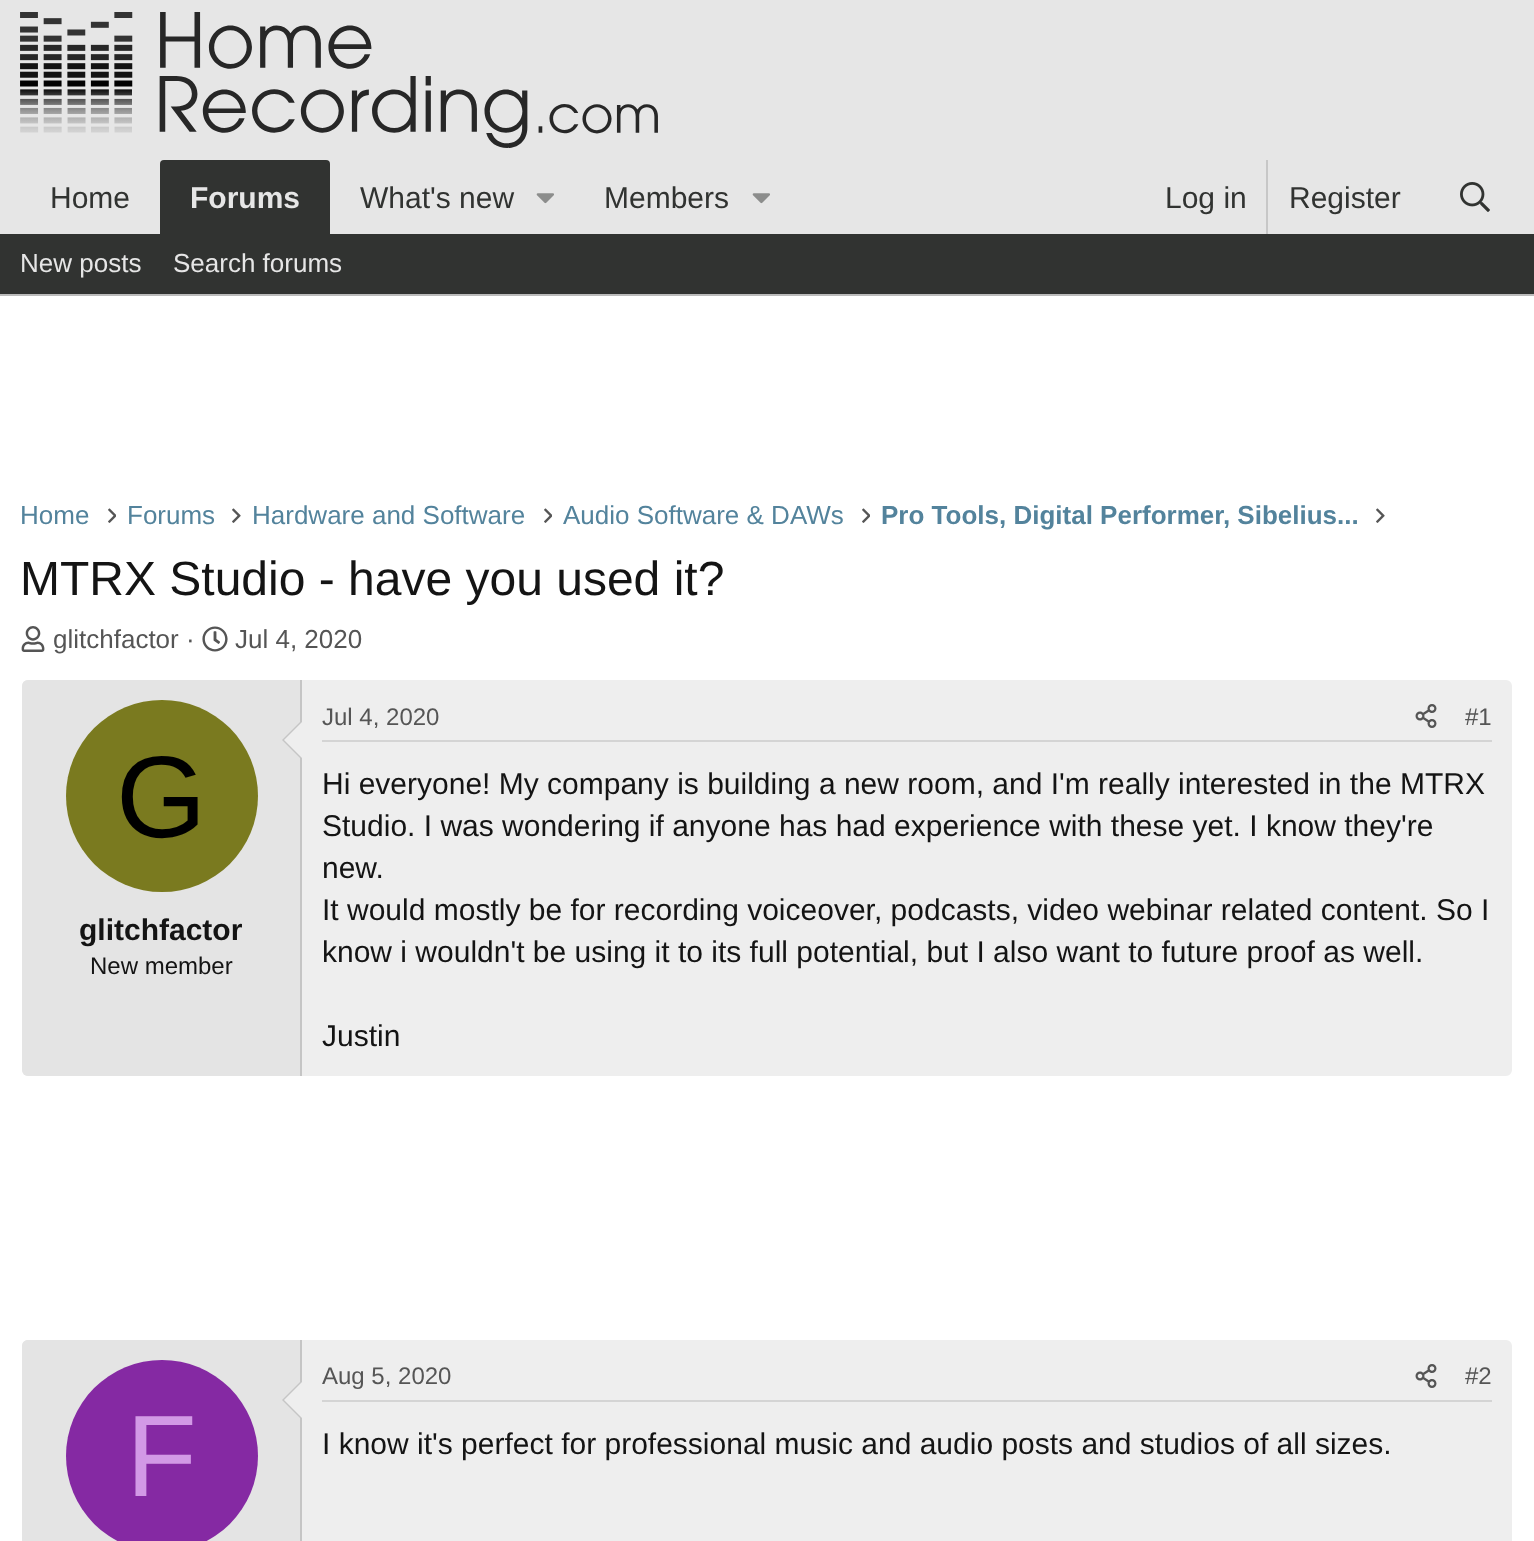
async function draw(canvas) {
	canvas.width = 1534;
	canvas.height = 1541;
	const c = canvas.getContext('2d');
	c.miterLimit = 4;
	c.fontKerning = 'normal';
	async function loadImage(src) {
		const img = new Image();
		img.src = src;
		await img.decode();
		return img;
	}

	c.fillStyle = '#fff';
	c.fillRect(0, 0, 1534, 1541);
	c.fillStyle = '#e6e6e6';
	c.fillRect(0, 0, 1534, 234);
	c.drawImage(await loadImage('img1.png'), 20, 12, 638, 136);
	c.font = '30px Liberation Sans';
	c.fillStyle = '#313331';
	c.fillText('Home', 50, 208);
	c.beginPath();
	c.roundRect(160, 160, 170, 74, [4, 4, 0, 0]);
	c.fill();
	c.font = 'bold 30px Liberation Sans';
	c.fillStyle = '#e6e6e6';
	c.fillText('Forums', 190, 208);
	c.font = '30px Liberation Sans';
	c.fillStyle = '#313331';
	c.fillText('What\'s new', 360, 208);
	c.drawImage(await loadImage('img2.png'), 536, 193, 18, 11);
	c.fillText('Members', 604, 208);
	c.drawImage(await loadImage('img2.png'), 752, 193, 18, 11);
	c.fillText('Log in', 1165, 208);
	c.fillStyle = '#c7c7c7';
	c.fillRect(1266, 160, 2, 74);
	c.fillStyle = '#313331';
	c.fillText('Register', 1289, 208);
	c.drawImage(await loadImage('img3.png'), 1460, 182, 30, 30);
	c.fillRect(0, 234, 1534, 60);
	c.fillStyle = '#bbb';
	c.fillRect(0, 294, 1534, 2);
	c.font = '26px Liberation Sans';
	c.fillStyle = '#e6e6e6';
	c.fillText('New posts', 20, 272);
	c.fillText('Search forums', 173, 272);
	c.fillStyle = '#53839c';
	c.fillText('Home', 20, 524);
	c.drawImage(await loadImage('img4.png'), 108, 508, 8, 15);
	c.fillText('Forums', 127, 524);
	c.drawImage(await loadImage('img5.png'), 232, 508, 9, 15);
	c.fillText('Hardware and Software', 252, 524);
	c.drawImage(await loadImage('img4.png'), 544, 508, 8, 15);
	c.fillText('Audio Software & DAWs', 563, 524);
	c.drawImage(await loadImage('img4.png'), 862, 508, 8, 15);
	c.font = 'bold 26px Liberation Sans';
	c.fillText('Pro Tools, Digital Performer, Sibelius...', 881, 524);
	c.drawImage(await loadImage('img5.png'), 1376, 508, 9, 15);
	c.font = '48px Liberation Sans';
	c.fillStyle = '#141414';
	c.fillText('MTRX Studio - have you used it?', 20, 595);
	c.drawImage(await loadImage('img6.png'), 21, 626, 24, 26);
	c.font = '26px Liberation Sans';
	c.fillStyle = '#555';
	c.fillText('glitchfactor ·', 53, 648);
	c.drawImage(await loadImage('img7.png'), 202, 626, 26, 26);
	c.fillText('Jul 4, 2020', 235, 648);
	c.fillStyle = '#eee';
	c.beginPath();
	c.roundRect(21, 679, 1492, 398, 7);
	c.fill();
	c.strokeStyle = '#fff';
	c.lineWidth = 2;
	c.stroke();
	c.fillStyle = '#e4e4e4';
	c.beginPath();
	c.roundRect(22, 680, 280, 396, [6, 0, 0, 6]);
	c.fill();
	c.fillStyle = '#c5c5c5';
	c.fillRect(300, 680, 2, 396);
	c.beginPath();
	c.moveTo(302, 720);
	c.lineTo(302, 760);
	c.lineTo(282, 740);
	c.closePath();
	c.fill();
	c.fillStyle = '#eee';
	c.beginPath();
	c.moveTo(302, 722);
	c.lineTo(302, 758);
	c.lineTo(284, 740);
	c.closePath();
	c.fill();
	c.fillStyle = '#7a7a1f';
	c.beginPath();
	c.arc(162, 796, 96, 0, 2 * Math.PI);
	c.fill();
	c.font = '116px Liberation Sans';
	c.fillStyle = '#000';
	c.fillText('G', 116, 837);
	c.font = 'bold 30px Liberation Sans';
	c.fillStyle = '#141414';
	c.fillText('glitchfactor', 79, 940);
	c.font = '24px Liberation Sans';
	c.fillText('New member', 90, 974);
	c.fillStyle = '#d4d4d4';
	c.fillRect(322, 740, 1170, 2);
	c.fillStyle = '#555';
	c.fillText('Jul 4, 2020', 322, 725);
	c.drawImage(await loadImage('img8.png'), 1415, 704, 22, 24);
	c.fillText('#1', 1465, 725);
	c.font = '30px Liberation Sans';
	c.fillStyle = '#141414';
	for (const [text, x, y] of [
		['Hi everyone! My company is building a new room, and I\'m really interested in the MTRX', 322, 794],
		['Studio. I was wondering if anyone has had experience with these yet. I know they\'re', 322, 836],
		['new.', 322, 878],
		['It would mostly be for recording voiceover, podcasts, video webinar related content. So I', 322, 920],
		['know i wouldn\'t be using it to its full potential, but I also want to future proof as well.', 322, 962],
		['Justin', 322, 1046],
	]) {
		c.fillText(text, x, y);
	}
	c.fillStyle = '#eee';
	c.beginPath();
	c.roundRect(21, 1339, 1492, 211, 7);
	c.fill();
	c.stroke();
	c.fillStyle = '#e4e4e4';
	c.beginPath();
	c.moveTo(28, 1340);
	c.lineTo(302, 1340);
	c.lineTo(302, 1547);
	c.lineTo(28, 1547);
	c.bezierCurveTo(24.5, 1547, 22, 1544.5, 22, 1541);
	c.lineTo(22, 1346);
	c.bezierCurveTo(22, 1342.5, 24.5, 1340, 28, 1340);
	c.closePath();
	c.fill();
	c.fillStyle = '#c5c5c5';
	c.fillRect(300, 1340, 2, 201);
	c.beginPath();
	c.moveTo(302, 1380);
	c.lineTo(302, 1420);
	c.lineTo(282, 1400);
	c.closePath();
	c.fill();
	c.fillStyle = '#eee';
	c.beginPath();
	c.moveTo(302, 1382);
	c.lineTo(302, 1418);
	c.lineTo(284, 1400);
	c.closePath();
	c.fill();
	c.fillStyle = '#8529a3';
	c.beginPath();
	c.arc(162, 1456, 96, 0, 2 * Math.PI);
	c.fill();
	c.font = '116px Liberation Sans';
	c.fillStyle = '#d299e6';
	c.fillText('F', 126, 1496);
	c.fillStyle = '#d4d4d4';
	c.fillRect(322, 1400, 1170, 2);
	c.font = '24px Liberation Sans';
	c.fillStyle = '#555';
	c.fillText('Aug 5, 2020', 322, 1384);
	c.drawImage(await loadImage('img8.png'), 1415, 1364, 22, 24);
	c.fillText('#2', 1465, 1384);
	c.font = '30px Liberation Sans';
	c.fillStyle = '#141414';
	c.fillText('I know it\'s perfect for professional music and audio posts and studios of all sizes.', 322, 1454);
}

draw(document.querySelector('canvas'));
